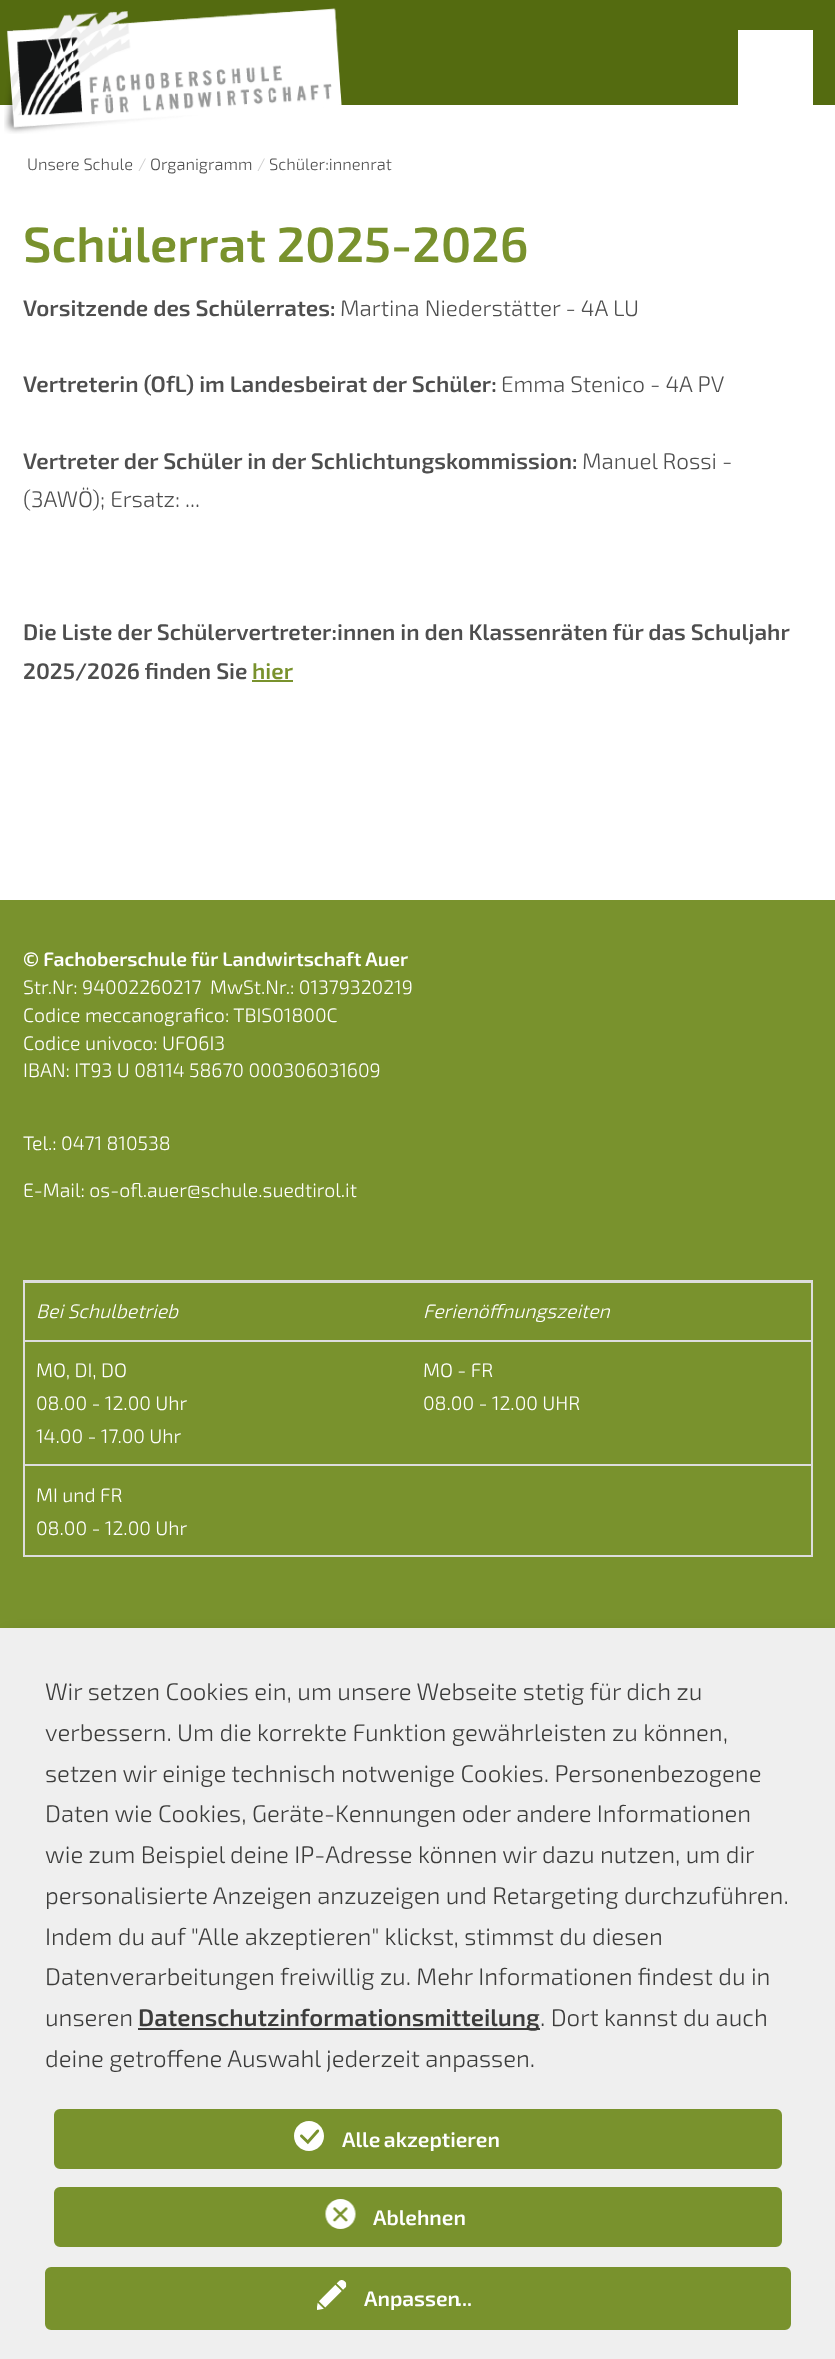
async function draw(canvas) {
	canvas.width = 835;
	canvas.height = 2359;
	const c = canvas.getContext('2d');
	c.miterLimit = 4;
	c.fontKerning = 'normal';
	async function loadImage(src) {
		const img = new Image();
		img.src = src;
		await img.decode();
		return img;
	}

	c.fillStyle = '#79922d';
	c.fillRect(0, 0, 835, 2359);
	c.fillStyle = '#546b10';
	c.fillRect(0, 0, 835, 105);
	c.fillStyle = '#fff';
	c.fillRect(0, 105, 835, 795);
	c.drawImage(await loadImage('img1.png'), 4, 8, 338, 126);
	c.fillRect(738, 30, 75, 75);
	c.font = '300 16.5px "Exo 2"';
	c.fillStyle = '#4e4e4e';
	c.fillText('Unsere Schule', 27, 170);
	c.fillStyle = '#ccc';
	c.fillText('/', 138, 170);
	c.fillStyle = '#4e4e4e';
	c.fillText('Organigramm', 150, 170);
	c.fillStyle = '#ccc';
	c.fillText('/', 257, 170);
	c.fillStyle = '#4e4e4e';
	c.fillText('Schüler:innenrat', 269, 170);
	c.font = '600 49.5px "Exo 2"';
	c.fillStyle = '#79922d';
	c.fillText('Schülerrat 2025-2026', 23, 262);
	c.font = '600 22.5px "Exo 2"';
	c.fillStyle = '#4e4e4e';
	c.fillText('Vorsitzende des Schülerrates:', 23, 316);
	c.font = '300 22.5px "Exo 2"';
	c.fillText('Martina Niederstätter - 4A LU', 340, 316);
	c.font = '600 22.5px "Exo 2"';
	c.fillText('Vertreterin (OfL) im Landesbeirat der Schüler:', 23, 392);
	c.font = '300 22.5px "Exo 2"';
	c.fillText('Emma Stenico - 4A PV', 501, 392);
	c.font = '600 22.5px "Exo 2"';
	c.fillText('Vertreter der Schüler in der Schlichtungskommission:', 23, 469);
	c.font = '300 22.5px "Exo 2"';
	c.fillText('Manuel Rossi -', 582, 469);
	c.fillText('(3AWÖ); Ersatz: ...', 23, 507);
	c.font = '600 22.5px "Exo 2"';
	c.fillText('Die Liste der Schülervertreter:innen in den Klassenräten für das Schuljahr', 23, 640);
	c.fillText('2025/2026 finden Sie', 23, 679);
	c.fillStyle = '#79922d';
	c.fillText('hier', 252, 679);
	c.fillRect(252, 680, 41, 2);
	c.font = '600 19.5px "Exo 2"';
	c.fillStyle = '#fff';
	c.fillText('© Fachoberschule für Landwirtschaft Auer', 23, 966);
	c.font = '300 19.5px "Exo 2"';
	for (const [text, x, y] of [
		['Str.Nr: 94002260217  MwSt.Nr.: 01379320219', 23, 994],
		['Codice meccanografico: TBIS01800C', 23, 1022],
		['Codice univoco: UFO6I3', 23, 1050],
		['IBAN: IT93 U 08114 58670 000306031609', 23, 1077],
		['Tel.: 0471 810538', 23, 1150],
		['E-Mail: os-ofl.auer@schule.suedtirol.it', 23, 1197],
	]) {
		c.fillText(text, x, y);
	}
	c.strokeStyle = '#ddd';
	c.lineWidth = 2;
	c.strokeRect(24, 1281, 788, 275);
	c.font = 'italic 300 19.5px "Exo 2"';
	c.fillText('Bei Schulbetrieb', 36, 1318);
	c.fillStyle = '#ddd';
	c.fillRect(24, 1282, 788, 1);
	c.fillStyle = '#fff';
	c.fillText('Ferienöffnungszeiten', 423, 1318);
	c.font = '300 19.5px "Exo 2"';
	for (const [text, x, y] of [
		['MO, DI, DO', 36, 1377],
		['08.00 - 12.00 Uhr', 36, 1410],
		['14.00 - 17.00 Uhr', 36, 1443],
	]) {
		c.fillText(text, x, y);
	}
	c.fillStyle = '#ddd';
	c.fillRect(24, 1340, 788, 2);
	c.fillStyle = '#fff';
	c.fillText('MO - FR', 423, 1377);
	c.fillText('08.00 - 12.00 UHR', 423, 1410);
	c.fillStyle = '#ddd';
	c.fillRect(24, 1464, 788, 2);
	c.fillStyle = '#fff';
	c.fillText('MI und FR', 36, 1502);
	c.fillText('08.00 - 12.00 Uhr', 36, 1535);
	c.fillStyle = '#00000030';
	c.filter = 'blur(7.5px)';
	c.beginPath();
	c.rect(8, 1635, 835, 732);
	c.fill();
	c.filter = 'none';
	c.fillStyle = '#efefef';
	c.fillRect(0, 1628, 835, 731);
	c.font = '300 24px "Exo 2"';
	c.fillStyle = '#3c3c3b';
	for (const [text, x, y] of [
		['Wir setzen Cookies ein, um unsere Webseite stetig für dich zu', 45, 1700],
		['verbessern. Um die korrekte Funktion gewährleisten zu können,', 45, 1741],
		['setzen wir einige technisch notwenige Cookies. Personenbezogene', 45, 1782],
		['Daten wie Cookies, Geräte-Kennungen oder andere Informationen', 45, 1822],
		['wie zum Beispiel deine IP-Adresse können wir dazu nutzen, um dir', 45, 1863],
		['personalisierte Anzeigen anzuzeigen und Retargeting durchzuführen.', 45, 1904],
		['Indem du auf "Alle akzeptieren" klickst, stimmst du diesen', 45, 1945],
		['Datenverarbeitungen freiwillig zu. Mehr Informationen findest du in', 45, 1985],
		['unseren', 45, 2026],
	]) {
		c.fillText(text, x, y);
	}
	c.fillRect(138, 2028, 402, 2);
	c.font = '600 24px "Exo 2"';
	c.fillText('Datenschutzinformationsmitteilung', 138, 2026);
	c.font = '300 24px "Exo 2"';
	c.fillText('. Dort kannst du auch', 540, 2026);
	c.fillText('deine getroffene Auswahl jederzeit anpassen.', 45, 2067);
	c.fillStyle = '#79922d';
	c.beginPath();
	c.roundRect(55.5, 2110.5, 725, 57, 4.5);
	c.fill();
	c.strokeStyle = '#79922d';
	c.lineWidth = 3;
	c.stroke();
	c.drawImage(await loadImage('img2.png'), 294, 2121, 30, 30);
	c.wordSpacing = '-1px';
	c.font = '600 21px "Exo 2"';
	c.fillStyle = '#fff';
	c.fillText('Alle akzeptieren', 342, 2147);
	c.fillStyle = '#79922d';
	c.beginPath();
	c.roundRect(55.5, 2188.5, 725, 57, 4.5);
	c.fill();
	c.stroke();
	c.drawImage(await loadImage('img3.png'), 325, 2199, 31, 30);
	c.wordSpacing = '0px';
	c.fillStyle = '#fff';
	c.fillText('Ablehnen', 373, 2225);
	c.fillStyle = '#79922d';
	c.beginPath();
	c.roundRect(46.5, 2268.5, 743, 60, 4.5);
	c.fill();
	c.stroke();
	c.drawImage(await loadImage('img4.png'), 317, 2280, 30, 30);
	c.fillStyle = '#fff';
	c.fillText('Anpassen', 364, 2306);
	c.fillText('...', 457, 2306);
}

draw(document.querySelector('canvas'));
